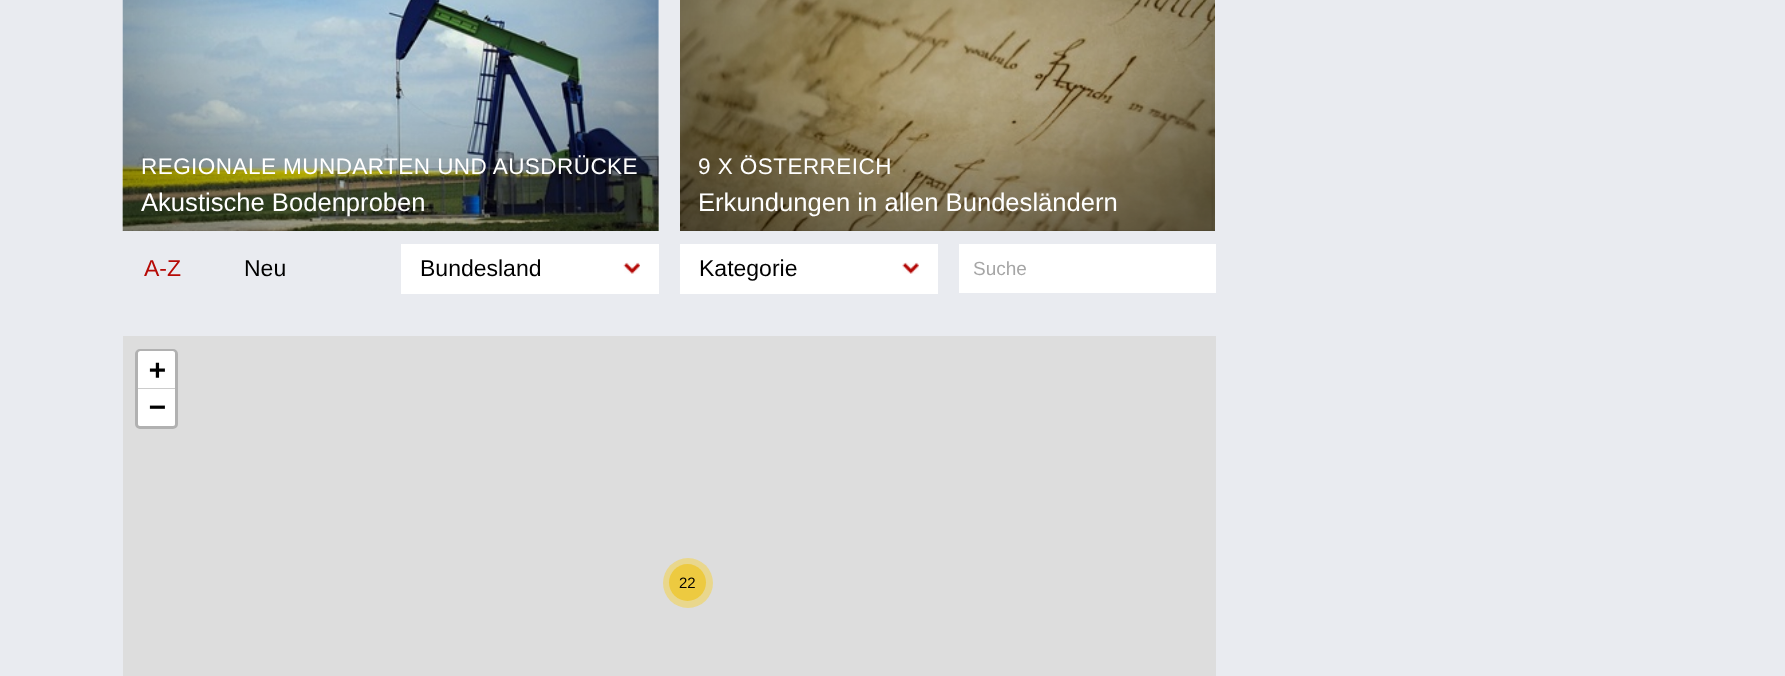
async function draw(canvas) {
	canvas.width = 1785;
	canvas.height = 676;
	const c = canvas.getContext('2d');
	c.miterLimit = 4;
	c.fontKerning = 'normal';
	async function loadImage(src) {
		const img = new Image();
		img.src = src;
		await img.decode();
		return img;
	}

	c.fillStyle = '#e9ebf0';
	c.fillRect(0, 0, 1785, 676);
	c.fillStyle = '#f0f1f4';
	c.fillRect(658, 0, 1, 231);
	c.drawImage(await loadImage('img1.png'), 122, 0, 537, 231);
	c.drawImage(await loadImage('img2.png'), 122, 0, 537, 231);
	c.letterSpacing = '0.45px';
	c.font = '22.5px Liberation Sans';
	c.fillStyle = '#fff';
	c.fillText('REGIONALE MUNDARTEN UND AUSDRÜCKE', 141, 174);
	c.letterSpacing = '0px';
	c.font = '25.6px Liberation Sans';
	c.fillText('Akustische Bodenproben', 141, 211);
	c.drawImage(await loadImage('img3.png'), 680, 0, 535, 231);
	c.drawImage(await loadImage('img4.png'), 680, 0, 535, 231);
	c.letterSpacing = '0.45px';
	c.font = '22.5px Liberation Sans';
	c.fillText('9 X ÖSTERREICH', 698, 174);
	c.letterSpacing = '0px';
	c.font = '25.6px Liberation Sans';
	c.fillText('Erkundungen in allen Bundesländern', 698, 211);
	c.font = '23px Liberation Sans';
	c.fillStyle = '#b60a06';
	c.fillText('A-Z', 144, 276);
	c.fillStyle = '#000';
	c.fillText('Neu', 244, 276);
	c.fillStyle = '#fff';
	c.fillRect(401, 244, 258, 50);
	c.fillStyle = '#000';
	c.fillText('Bundesland', 420, 276);
	c.drawImage(await loadImage('img5.png'), 623, 262, 17, 12);
	c.fillStyle = '#fff';
	c.fillRect(680, 244, 258, 50);
	c.fillStyle = '#000';
	c.fillText('Kategorie', 699, 276);
	c.drawImage(await loadImage('img6.png'), 902, 262, 17, 12);
	c.fillStyle = '#fff';
	c.fillRect(959, 244, 257, 49);
	c.font = '19px Liberation Sans';
	c.fillStyle = '#a6a6a6';
	c.fillText('Suche', 973, 275);
	c.fillStyle = '#ddd';
	c.fillRect(123, 336, 1093, 340);
	c.beginPath();
	c.roundRect(136.5, 350.5, 40, 77, 3.5);
	c.strokeStyle = '#b1b1b1';
	c.lineWidth = 3;
	c.stroke();
	c.fillStyle = '#fff';
	c.beginPath();
	c.roundRect(138, 351, 37, 38, [2.5, 2.5, 0, 0]);
	c.fill();
	c.fillStyle = '#ccc';
	c.fillRect(138, 388, 37, 1);
	c.font = 'bold 28px DejaVu Sans Mono';
	c.fillStyle = '#000';
	c.fillText('+', 149, 379);
	c.fillStyle = '#fff';
	c.beginPath();
	c.roundRect(138, 389, 37, 37, [0, 0, 2.5, 2.5]);
	c.fill();
	c.fillStyle = '#000';
	c.fillText('−', 149, 416);
	c.fillStyle = '#e9d78d';
	c.beginPath();
	c.arc(688, 583, 25, 0, 2 * Math.PI);
	c.fill();
	c.fillStyle = '#edca40';
	c.beginPath();
	c.arc(687.5, 582.5, 18.5, 0, 2 * Math.PI);
	c.fill();
	c.font = '15px Liberation Sans';
	c.fillStyle = '#000';
	c.fillText('22', 679, 588);
}

draw(document.querySelector('canvas'));
